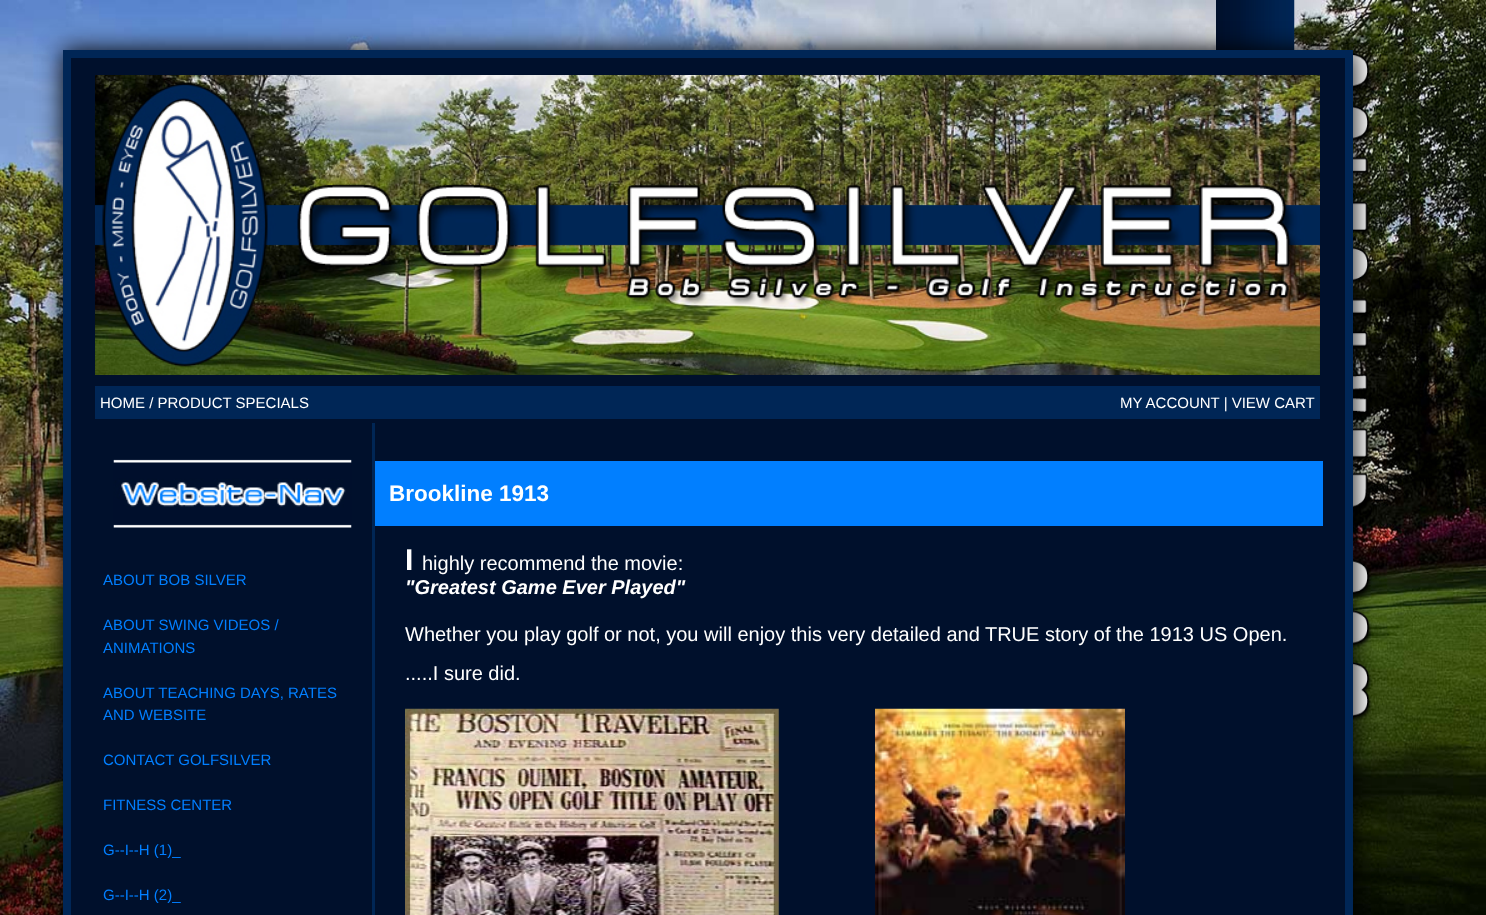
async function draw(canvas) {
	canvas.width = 1486;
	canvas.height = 915;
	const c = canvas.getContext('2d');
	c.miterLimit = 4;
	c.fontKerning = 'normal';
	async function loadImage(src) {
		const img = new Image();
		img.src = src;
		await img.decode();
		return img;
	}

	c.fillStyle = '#fff';
	c.fillRect(0, 0, 1486, 915);
	c.drawImage(await loadImage('img1.png'), 0, 0, 1486, 915);
	c.fillStyle = '#000';
	c.filter = 'blur(12.5px)';
	c.beginPath();
	c.rect(63, 50, 1290, 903);
	c.fill();
	c.filter = 'none';
	c.fillStyle = '#00102c';
	c.beginPath();
	c.rect(67, 54, 1282, 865);
	c.fill();
	c.strokeStyle = '#002656';
	c.lineWidth = 8;
	c.stroke();
	c.drawImage(await loadImage('img2.png'), 95, 75, 1225, 300);
	c.fillStyle = '#002656';
	c.fillRect(95, 386, 1225, 33);
	c.font = '15px Liberation Sans';
	c.fillStyle = '#fff';
	c.fillText('HOME / PRODUCT SPECIALS', 100, 408);
	c.fillText('MY ACCOUNT | VIEW CART', 1120, 408);
	c.drawImage(await loadImage('img3.png'), 113, 459, 239, 69);
	c.fillStyle = '#017fff';
	for (const [text, x, y] of [
		['ABOUT BOB SILVER', 103, 585],
		['ABOUT SWING VIDEOS /', 103, 630],
		['ANIMATIONS', 103, 653],
		['ABOUT TEACHING DAYS, RATES', 103, 698],
		['AND WEBSITE', 103, 720],
		['CONTACT GOLFSILVER', 103, 765],
		['FITNESS CENTER', 103, 810],
		['G--I--H (1)_', 103, 855],
		['G--I--H (2)_', 103, 900],
	]) {
		c.fillText(text, x, y);
	}
	c.fillStyle = '#002655';
	c.fillRect(372, 423, 3, 492);
	c.fillStyle = '#017fff';
	c.fillRect(375, 461, 948, 65);
	c.font = 'bold 22.5px Liberation Sans';
	c.fillStyle = '#fff';
	c.fillText('Brookline 1913', 389, 501);
	c.font = 'bold 30px Liberation Sans';
	c.fillText('I', 405, 570);
	c.font = '20px Liberation Sans';
	c.fillText('highly recommend the movie:', 422, 570);
	c.font = 'italic bold 20px Liberation Sans';
	c.fillText('"Greatest Game Ever Played"', 405, 594);
	c.font = '20px Liberation Sans';
	c.fillText('Whether you play golf or not, you will enjoy this very detailed and TRUE story of the 1913 US Open.', 405, 641);
	c.fillText('.....I sure did.', 405, 680);
	c.drawImage(await loadImage('img4.png'), 405, 708, 374, 207);
	c.drawImage(await loadImage('img5.png'), 875, 708, 250, 207);
}

draw(document.querySelector('canvas'));
